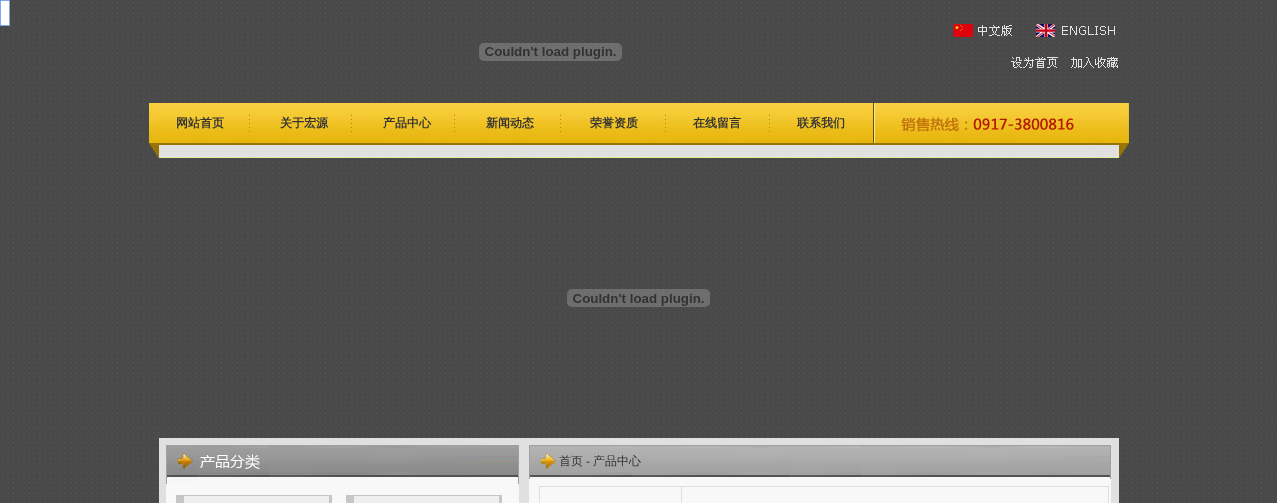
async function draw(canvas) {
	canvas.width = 1277;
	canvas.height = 503;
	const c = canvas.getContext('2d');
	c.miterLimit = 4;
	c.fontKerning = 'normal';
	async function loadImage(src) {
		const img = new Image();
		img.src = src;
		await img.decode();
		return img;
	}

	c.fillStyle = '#fff';
	c.fillRect(0, 0, 1277, 503);
	c.drawImage(await loadImage('img1.png'), 0, 0, 1277, 503);
	c.beginPath();
	c.rect(0.5, 0.5, 9, 25);
	c.fill();
	c.strokeStyle = '#7ca9ed';
	c.stroke();
	c.drawImage(await loadImage('img2.png'), 479, 43, 143, 18);
	c.drawImage(await loadImage('img3.png'), 953, 2, 169, 101);
	c.drawImage(await loadImage('img4.png'), 149, 103, 980, 42);
	c.font = 'bold 12px WenQuanYi Zen Hei';
	c.fillStyle = '#333';
	for (const [text, x, y] of [
		['网站首页', 176, 127],
		['关于宏源', 280, 127],
		['产品中心', 383, 127],
		['新闻动态', 486, 127],
		['荣誉资质', 590, 127],
		['在线留言', 693, 127],
		['联系我们', 797, 127],
	]) {
		c.fillText(text, x, y);
	}
	c.drawImage(await loadImage('img5.png'), 149, 145, 979, 13);
	c.drawImage(await loadImage('img6.png'), 567, 289, 143, 18);
	c.fillStyle = '#e0e0e0';
	c.fillRect(159, 438, 960, 65);
	c.drawImage(await loadImage('img7.png'), 166, 445, 353, 39);
	for (const [x, y, w, h, color] of [
		[166, 484, 353, 19, '#f8f8f8'],
		[184, 496, 145, 7, '#efefef'],
		[176, 495, 156, 1, '#c6c6c6'],
		[329, 495, 3, 8, '#c6c6c6'],
		[176, 496, 8, 7, '#c6c6c6'],
		[354, 496, 145, 7, '#efefef'],
		[346, 495, 156, 1, '#c6c6c6'],
		[499, 495, 3, 8, '#c6c6c6'],
		[346, 496, 8, 7, '#c6c6c6'],
	]) {
		c.fillStyle = color;
		c.fillRect(x, y, w, h);
	}
	c.drawImage(await loadImage('img8.png'), 529, 445, 582, 34);
	c.font = '500 12px WenQuanYi Zen Hei';
	c.fillStyle = '#333';
	c.fillText('首页', 559, 465);
	c.font = '12px Liberation Serif';
	c.fillText('-', 586, 465);
	c.font = '500 12px WenQuanYi Zen Hei';
	c.fillText('产品中心', 593, 465);
	for (const [x, y, w, h, color] of [
		[529, 479, 582, 24, '#f8f8f8'],
		[539, 486, 570, 1, '#dfdfdf'],
		[1108, 486, 1, 17, '#dfdfdf'],
		[539, 486, 1, 17, '#dfdfdf'],
		[681, 486, 1, 17, '#dfdfdf'],
	]) {
		c.fillStyle = color;
		c.fillRect(x, y, w, h);
	}
}

draw(document.querySelector('canvas'));
